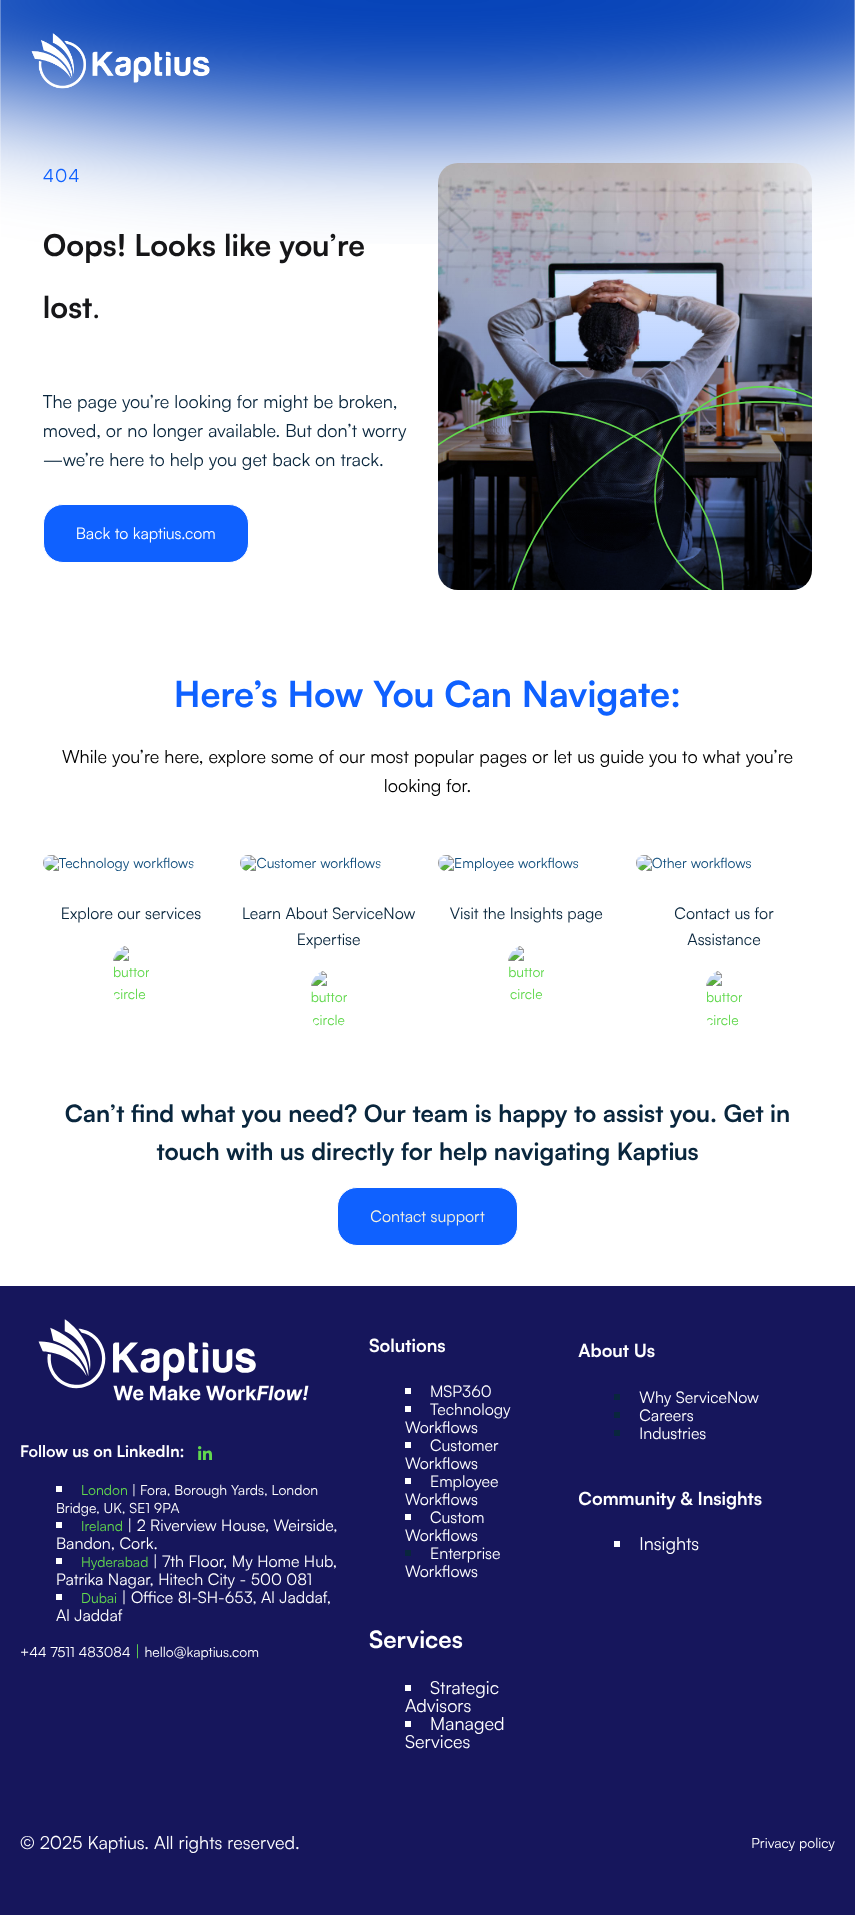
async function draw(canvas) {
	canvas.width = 855;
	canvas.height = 1926;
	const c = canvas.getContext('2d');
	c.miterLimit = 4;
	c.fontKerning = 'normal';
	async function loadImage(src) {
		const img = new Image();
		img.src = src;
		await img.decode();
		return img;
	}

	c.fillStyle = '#fff';
	c.fillRect(0, 0, 855, 1926);
	c.drawImage(await loadImage('img1.png'), 0, 0, 855, 1915);
}

draw(document.querySelector('canvas'));
